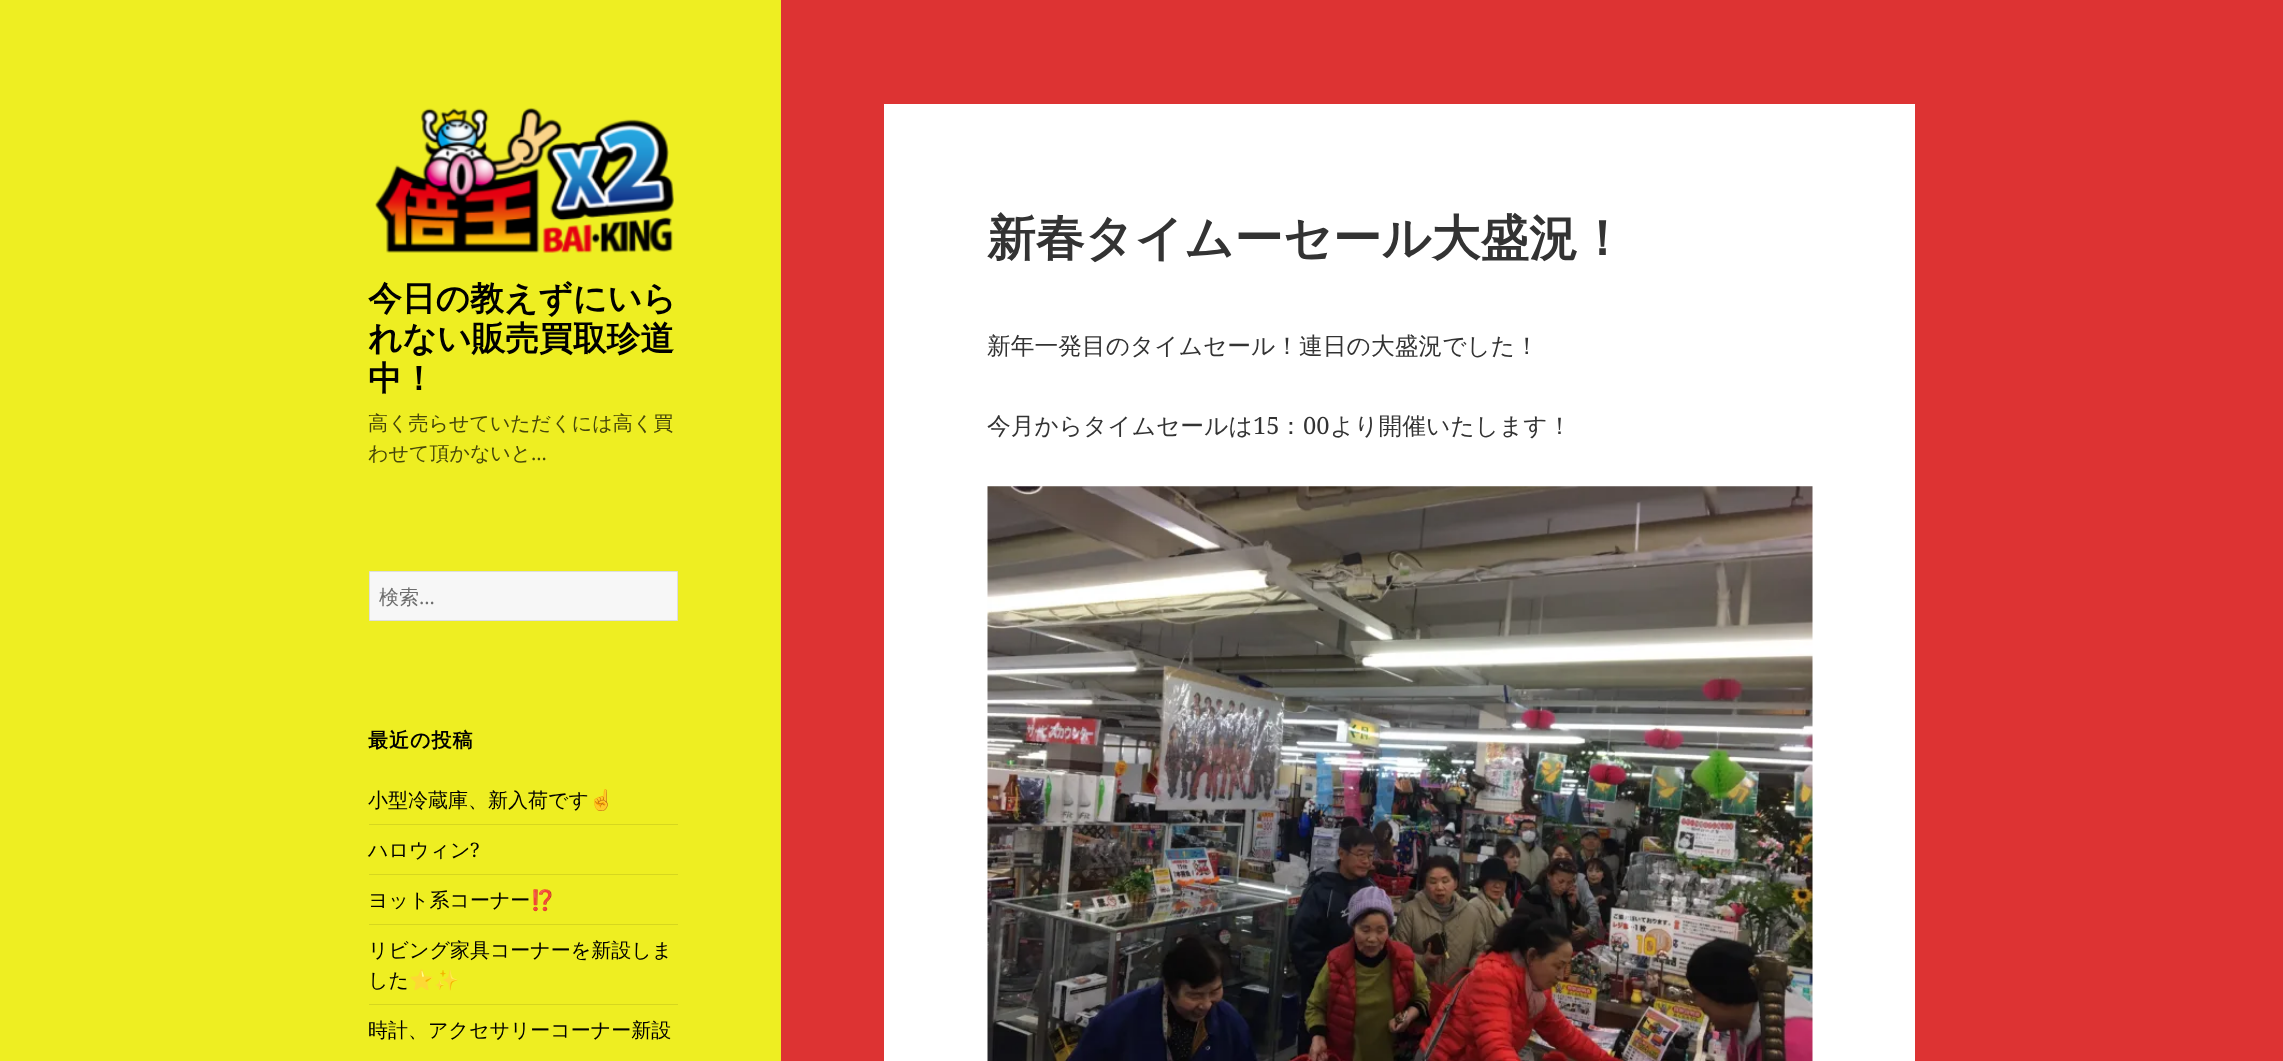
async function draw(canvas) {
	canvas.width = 2283;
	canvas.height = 1061;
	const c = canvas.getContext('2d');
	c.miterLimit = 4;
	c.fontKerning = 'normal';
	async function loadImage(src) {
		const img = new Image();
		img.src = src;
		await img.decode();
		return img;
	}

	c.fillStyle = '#d33';
	c.fillRect(0, 0, 2283, 1061);
	c.fillStyle = '#ee2';
	c.fillRect(0, 0, 781, 1061);
	c.drawImage(await loadImage('img1.png'), 375, 107, 299, 146);
	c.font = 'bold 33.75px WenQuanYi Zen Hei';
	c.fillStyle = '#000';
	for (const [text, x, y] of [
		['今日の教えずにいら', 368, 310],
		['れない販売買取珍道', 368, 350],
		['中！', 368, 390],
	]) {
		c.fillText(text, x, y);
	}
	c.font = '500 20px WenQuanYi Zen Hei';
	c.fillStyle = '#47470a';
	c.fillText('高く売らせていただくには高く買', 368, 430);
	c.fillText('わせて頂かないと', 368, 460);
	c.font = '20px Noto Sans';
	c.fillText('…', 531, 460);
	c.fillStyle = '#f7f7f7';
	c.beginPath();
	c.rect(369.5, 571.5, 308, 49);
	c.fill();
	c.strokeStyle = '#dedede';
	c.stroke();
	c.font = '500 20px WenQuanYi Zen Hei';
	c.fillStyle = '#6e6e6e';
	c.fillText('検索', 379, 604);
	c.font = '20px Noto Sans';
	c.fillText('…', 419, 604);
	c.letterSpacing = '1px';
	c.font = 'bold 20px WenQuanYi Zen Hei';
	c.fillStyle = '#000';
	c.fillText('最近の投稿', 368, 747);
	c.letterSpacing = '0px';
	c.font = '500 20px WenQuanYi Zen Hei';
	c.fillText('小型冷蔵庫、新入荷です', 368, 807);
	c.font = '20px Noto Color Emoji';
	c.fillText('☝️', 589, 807);
	c.fillStyle = '#d6d61f';
	c.fillRect(369, 824, 309, 1);
	c.font = '500 20px WenQuanYi Zen Hei';
	c.fillStyle = '#000';
	c.fillText('ハロウィン', 368, 857);
	c.font = '20px Noto Serif';
	c.fillText('?', 470, 857);
	c.fillStyle = '#d6d61f';
	c.fillRect(369, 874, 309, 1);
	c.font = '500 20px WenQuanYi Zen Hei';
	c.fillStyle = '#000';
	c.fillText('ヨット系コーナー', 368, 907);
	c.font = '20px Noto Color Emoji';
	c.fillText('⁉️', 530, 907);
	c.fillStyle = '#d6d61f';
	c.fillRect(369, 924, 309, 1);
	c.font = '500 20px WenQuanYi Zen Hei';
	c.fillStyle = '#000';
	c.fillText('リビング家具コーナーを新設しま', 368, 957);
	c.fillText('した', 368, 987);
	c.font = '20px Noto Color Emoji';
	c.fillText('⭐️✨', 409, 987);
	c.fillStyle = '#d6d61f';
	c.fillRect(369, 1004, 309, 1);
	c.font = '500 20px WenQuanYi Zen Hei';
	c.fillStyle = '#000';
	c.fillText('時計、アクセサリーコーナー新設', 368, 1037);
	c.fillStyle = '#fff';
	c.fillRect(884, 104, 1031, 957);
	c.font = 'bold 48.75px WenQuanYi Zen Hei';
	c.fillStyle = '#333';
	c.fillText('新春タイムーセール大盛況！', 987, 255);
	c.font = '500 23.75px WenQuanYi Zen Hei';
	c.fillText('新年一発目のタイムセール！連日の大盛況でした！', 987, 354);
	c.fillText('今月からタイムセールは', 987, 434);
	c.font = '23.75px Noto Serif';
	c.fillText('15', 1253, 434);
	c.font = '500 23.75px WenQuanYi Zen Hei';
	c.fillText('：', 1279, 434);
	c.font = '23.75px Noto Serif';
	c.fillText('00', 1303, 434);
	c.font = '500 23.75px WenQuanYi Zen Hei';
	c.fillText('より開催いたします！', 1330, 434);
	c.drawImage(await loadImage('img2.png'), 987, 486, 826, 575);
}

draw(document.querySelector('canvas'));
